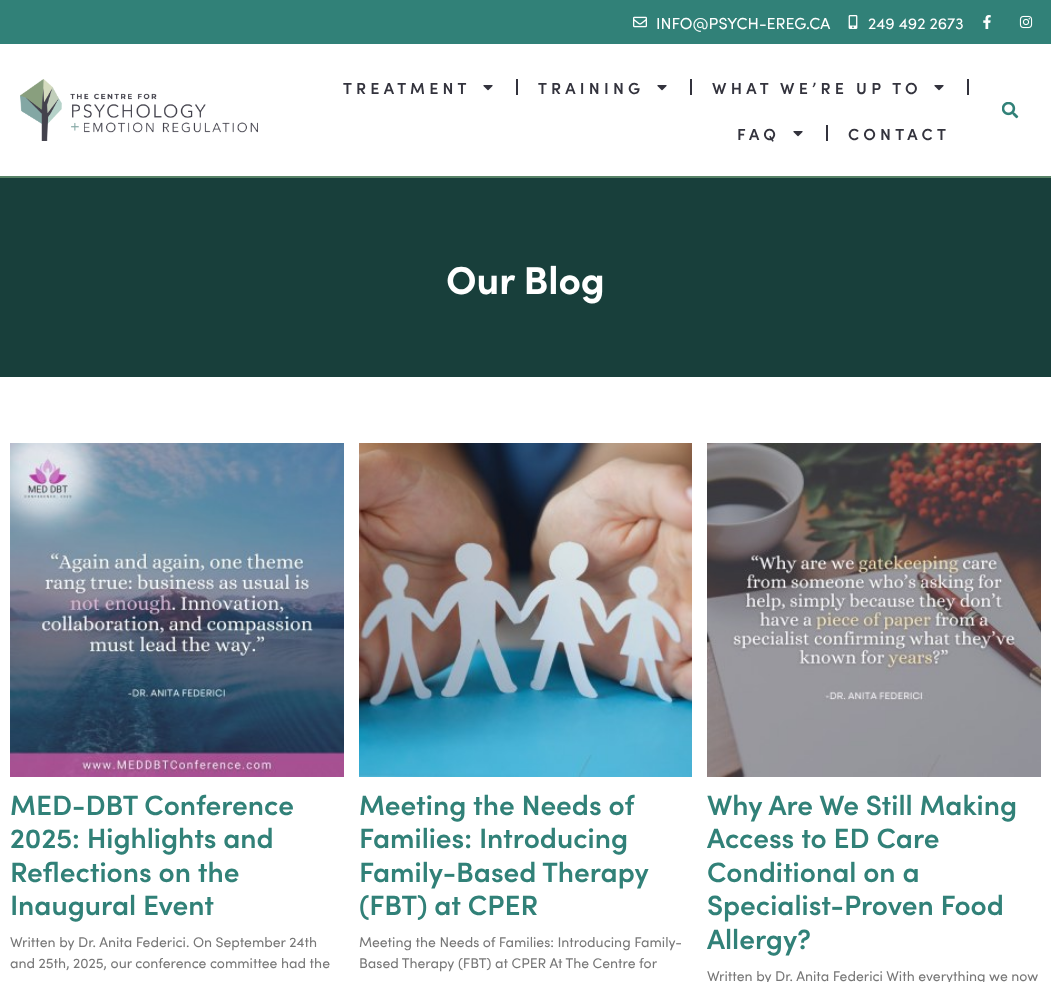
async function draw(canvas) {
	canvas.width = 1051;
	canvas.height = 982;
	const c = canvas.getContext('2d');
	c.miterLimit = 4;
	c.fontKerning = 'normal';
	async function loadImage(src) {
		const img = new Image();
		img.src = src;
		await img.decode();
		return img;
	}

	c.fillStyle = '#fff';
	c.fillRect(0, 0, 1051, 982);
	c.fillStyle = '#318178';
	c.fillRect(0, 0, 1051, 44);
	c.drawImage(await loadImage('img1.png'), 633, 16, 14, 12);
	c.font = '16px Sofia';
	c.fillStyle = '#fff';
	c.fillText('INFO@PSYCH-EREG.CA', 656, 29);
	c.drawImage(await loadImage('img2.png'), 848, 15, 10, 14);
	c.fillText('249 492 2673', 868, 29);
	c.drawImage(await loadImage('img3.png'), 983, 15, 8, 14);
	c.drawImage(await loadImage('img4.png'), 1019, 15, 14, 14);
	c.fillStyle = '#588367';
	c.fillRect(0, 176, 1051, 2);
	c.drawImage(await loadImage('img5.png'), 20, 79, 238, 62);
	c.letterSpacing = '4.2px';
	c.font = '600 16px Sofia';
	c.fillStyle = '#33333d';
	c.fillText('TREATMENT', 343, 94);
	c.drawImage(await loadImage('img6.png'), 483, 85, 10, 6);
	c.fillRect(516, 79, 2, 16);
	c.fillText('TRAINING', 538, 94);
	c.drawImage(await loadImage('img6.png'), 657, 85, 10, 6);
	c.fillRect(690, 79, 2, 16);
	c.fillText('WHAT WE’RE UP TO', 712, 94);
	c.drawImage(await loadImage('img6.png'), 934, 85, 10, 6);
	c.fillRect(967, 79, 2, 16);
	c.fillText('FAQ', 737, 140);
	c.drawImage(await loadImage('img6.png'), 793, 131, 10, 6);
	c.fillRect(826, 125, 2, 16);
	c.fillText('CONTACT', 848, 140);
	c.drawImage(await loadImage('img7.png'), 1002, 102, 17, 17);
	c.fillStyle = '#183f3b';
	c.fillRect(0, 178, 1051, 199);
	c.letterSpacing = '0px';
	c.font = 'bold 39px Sofia';
	c.fillStyle = '#fff';
	c.fillText('Our Blog', 446, 294);
	c.drawImage(await loadImage('img8.png'), 10, 443, 334, 334);
	c.font = '600 28px Sofia';
	c.fillStyle = '#318178';
	for (const [text, x, y] of [
		['MED-DBT Conference', 10, 815],
		['2025: Highlights and', 10, 848],
		['Reflections on the', 10, 882],
		['Inaugural Event', 10, 915],
	]) {
		c.fillText(text, x, y);
	}
	c.font = '14px Sofia';
	c.fillStyle = '#777';
	c.fillText('Written by Dr. Anita Federici. On September 24th', 10, 947);
	c.fillText('and 25th, 2025, our conference committee had the', 10, 968);
	c.drawImage(await loadImage('img9.png'), 359, 443, 333, 334);
	c.font = '600 28px Sofia';
	c.fillStyle = '#318178';
	for (const [text, x, y] of [
		['Meeting the Needs of', 359, 815],
		['Families: Introducing', 359, 848],
		['Family-Based Therapy', 359, 882],
		['(FBT) at CPER', 359, 915],
	]) {
		c.fillText(text, x, y);
	}
	c.font = '14px Sofia';
	c.fillStyle = '#777';
	c.fillText('Meeting the Needs of Families: Introducing Family-', 359, 947);
	c.fillText('Based Therapy (FBT) at CPER At The Centre for', 359, 968);
	c.drawImage(await loadImage('img10.png'), 707, 443, 334, 334);
	c.font = '600 28px Sofia';
	c.fillStyle = '#318178';
	for (const [text, x, y] of [
		['Why Are We Still Making', 707, 815],
		['Access to ED Care', 707, 848],
		['Conditional on a', 707, 882],
		['Specialist-Proven Food', 707, 915],
		['Allergy?', 707, 949],
	]) {
		c.fillText(text, x, y);
	}
	c.font = '14px Sofia';
	c.fillStyle = '#777';
	c.fillText('Written by Dr. Anita Federici With everything we now', 707, 981);
}

draw(document.querySelector('canvas'));
